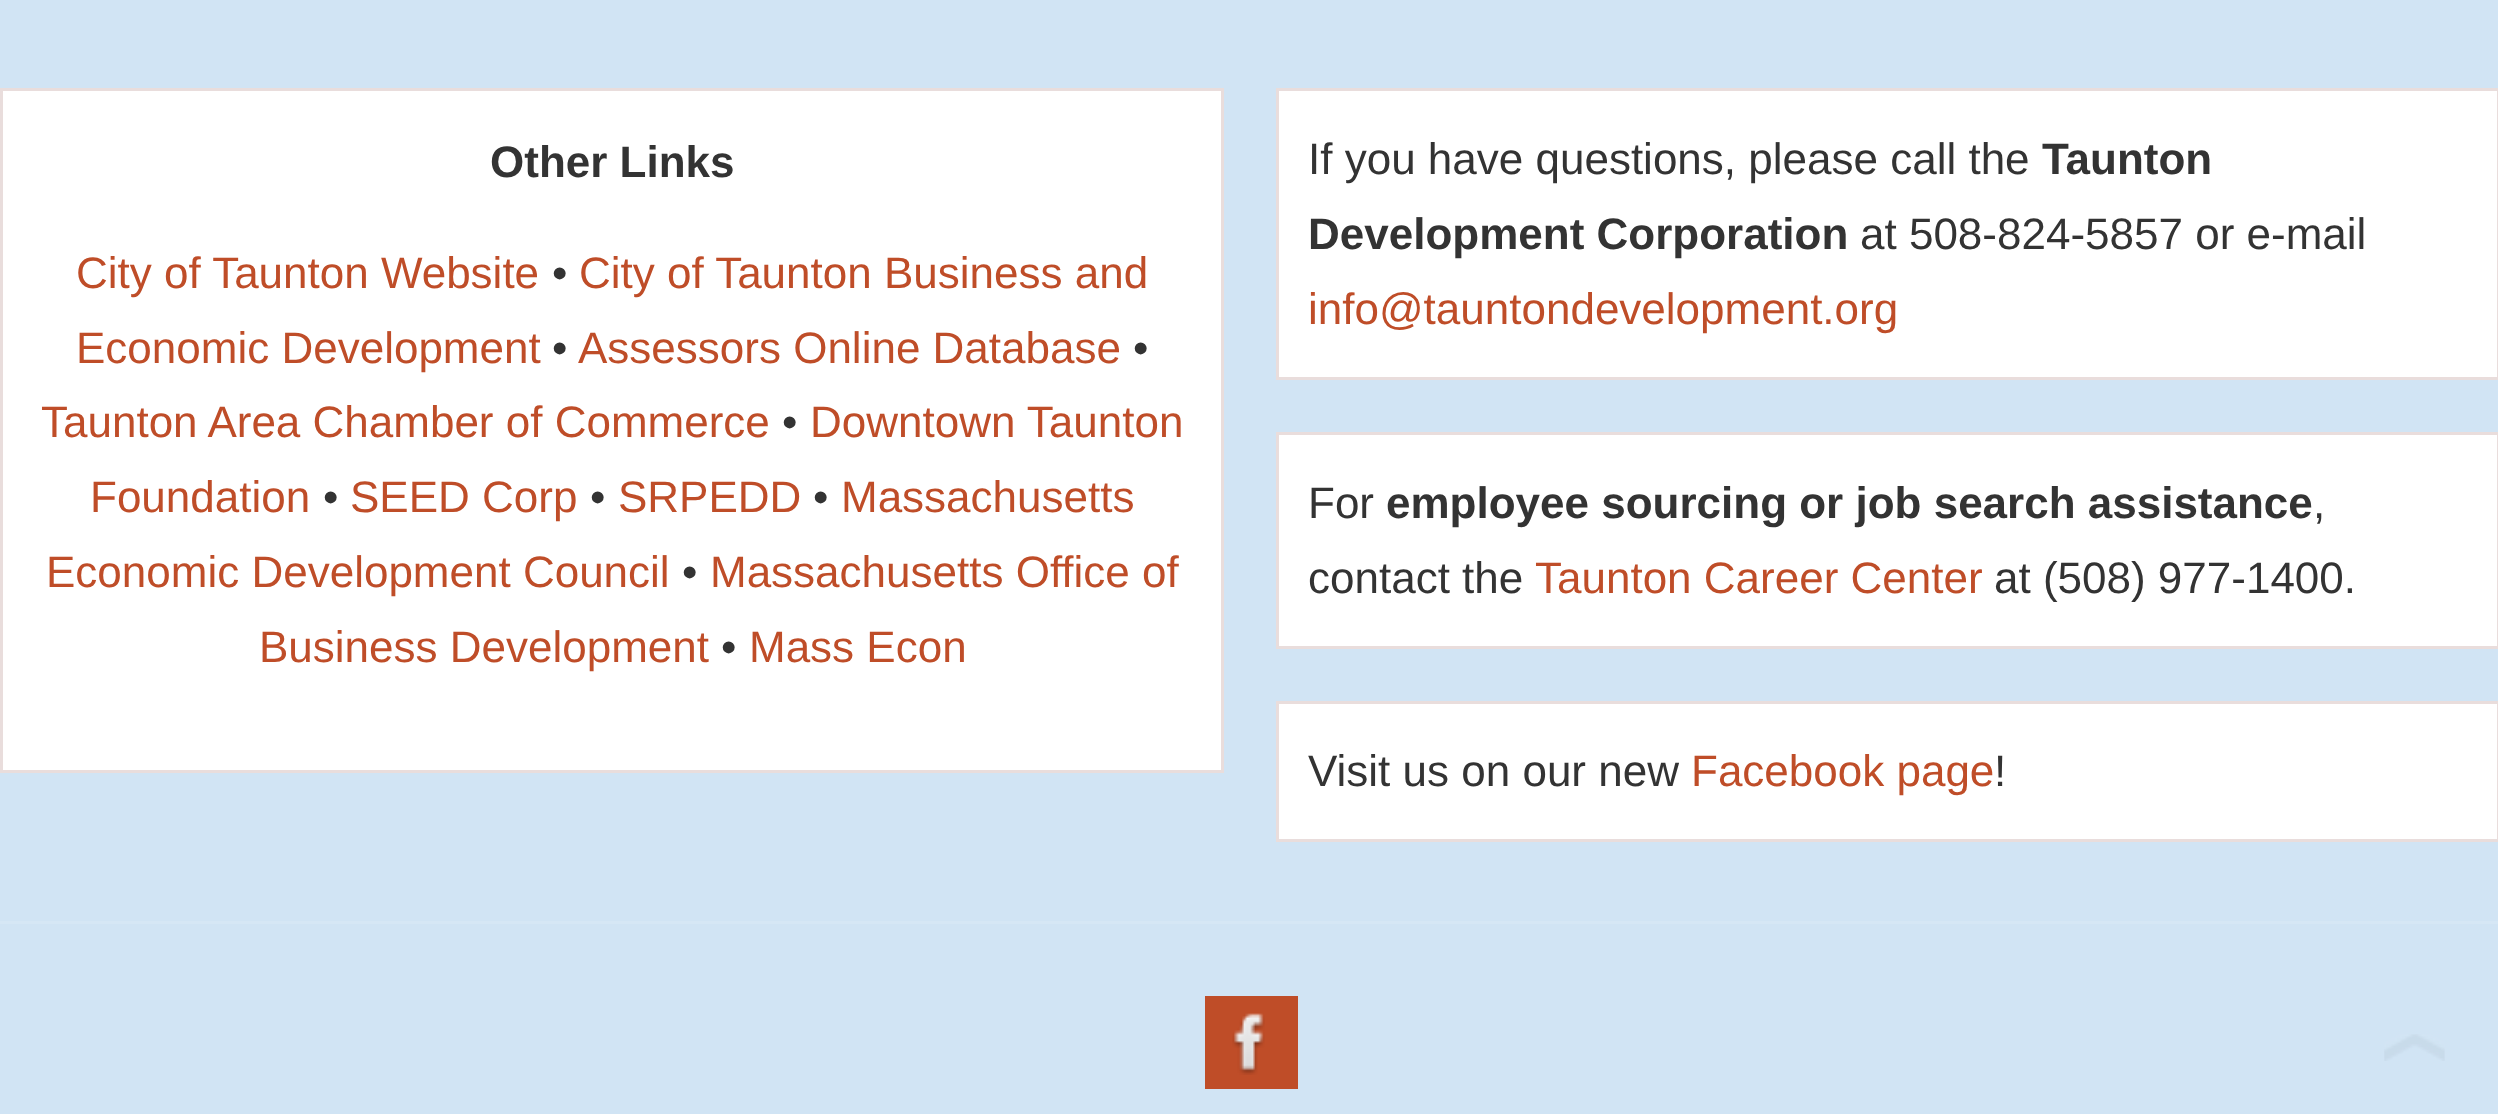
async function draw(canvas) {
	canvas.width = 2498;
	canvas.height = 1114;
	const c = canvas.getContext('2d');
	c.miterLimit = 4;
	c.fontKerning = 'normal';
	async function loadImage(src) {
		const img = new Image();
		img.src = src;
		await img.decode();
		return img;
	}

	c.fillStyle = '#d1e4f4';
	c.fillRect(0, 0, 2498, 1114);
	c.fillStyle = '#fff';
	c.beginPath();
	c.rect(1.5, 89.5, 1221, 682);
	c.fill();
	c.strokeStyle = '#e9dddc';
	c.lineWidth = 3;
	c.stroke();
	c.font = 'bold 44px Liberation Sans';
	c.fillStyle = '#333';
	c.fillText('Other Links', 490, 177);
	c.font = '44px Liberation Sans';
	c.fillStyle = '#bf4d28';
	c.fillText('City of Taunton Website', 76, 288);
	c.fillStyle = '#333';
	c.fillText('•', 552, 288);
	c.fillStyle = '#bf4d28';
	c.fillText('City of Taunton Business and', 579, 288);
	c.fillText('Economic Development', 76, 363);
	c.fillStyle = '#333';
	c.fillText('•', 552, 363);
	c.fillStyle = '#bf4d28';
	c.fillText('Assessors Online Database', 578, 363);
	c.fillStyle = '#333';
	c.fillText('•', 1133, 363);
	c.fillStyle = '#bf4d28';
	c.fillText('Taunton Area Chamber of Commerce', 41, 437);
	c.fillStyle = '#333';
	c.fillText('•', 782, 437);
	c.fillStyle = '#bf4d28';
	c.fillText('Downtown Taunton', 810, 437);
	c.fillText('Foundation', 90, 512);
	c.fillStyle = '#333';
	c.fillText('•', 323, 512);
	c.fillStyle = '#bf4d28';
	c.fillText('SEED Corp', 350, 512);
	c.fillStyle = '#333';
	c.fillText('•', 590, 512);
	c.fillStyle = '#bf4d28';
	c.fillText('SRPEDD', 618, 512);
	c.fillStyle = '#333';
	c.fillText('•', 813, 512);
	c.fillStyle = '#bf4d28';
	c.fillText('Massachusetts', 841, 512);
	c.fillText('Economic Development Council', 46, 587);
	c.fillStyle = '#333';
	c.fillText('•', 682, 587);
	c.fillStyle = '#bf4d28';
	c.fillText('Massachusetts Office of', 710, 587);
	c.fillText('Business Development', 259, 662);
	c.fillStyle = '#333';
	c.fillText('•', 721, 662);
	c.fillStyle = '#bf4d28';
	c.fillText('Mass Econ', 749, 662);
	c.fillStyle = '#fff';
	c.beginPath();
	c.rect(1277.5, 89.5, 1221, 289);
	c.fill();
	c.stroke();
	c.fillStyle = '#333';
	c.fillText('If you have questions, please call the', 1308, 174);
	c.font = 'bold 44px Liberation Sans';
	c.fillText('Taunton', 2042, 174);
	c.fillText('Development Corporation', 1308, 249);
	c.font = '44px Liberation Sans';
	c.fillText('at 508-824-5857 or e-mail', 1860, 249);
	c.fillStyle = '#bf4d28';
	c.fillText('info@tauntondevelopment.org', 1308, 324);
	c.fillStyle = '#fff';
	c.beginPath();
	c.rect(1277.5, 433.5, 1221, 214);
	c.fill();
	c.stroke();
	c.fillStyle = '#333';
	c.fillText('For', 1308, 518);
	c.font = 'bold 44px Liberation Sans';
	c.fillText('employee sourcing or job search assistance', 1386, 518);
	c.font = '44px Liberation Sans';
	c.fillText(',', 2313, 518);
	c.fillText('contact the', 1308, 593);
	c.fillStyle = '#bf4d28';
	c.fillText('Taunton Career Center', 1535, 593);
	c.fillStyle = '#333';
	c.fillText('at (508) 977-1400.', 1994, 593);
	c.fillStyle = '#fff';
	c.beginPath();
	c.rect(1277.5, 702.5, 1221, 138);
	c.fill();
	c.stroke();
	c.fillStyle = '#333';
	c.fillText('Visit us on our new', 1308, 786);
	c.fillStyle = '#bf4d28';
	c.fillText('Facebook page', 1691, 786);
	c.fillStyle = '#333';
	c.fillText('!', 1994, 786);
	c.fillStyle = '#d6e7f5';
	c.fillRect(0, 921, 2498, 3);
	c.fillStyle = '#bf4d28';
	c.fillRect(1205, 996, 93, 93);
	c.drawImage(await loadImage('img1.png'), 1232, 1013, 33, 62);
	c.drawImage(await loadImage('img2.png'), 2384, 1034, 61, 27);
}

draw(document.querySelector('canvas'));
